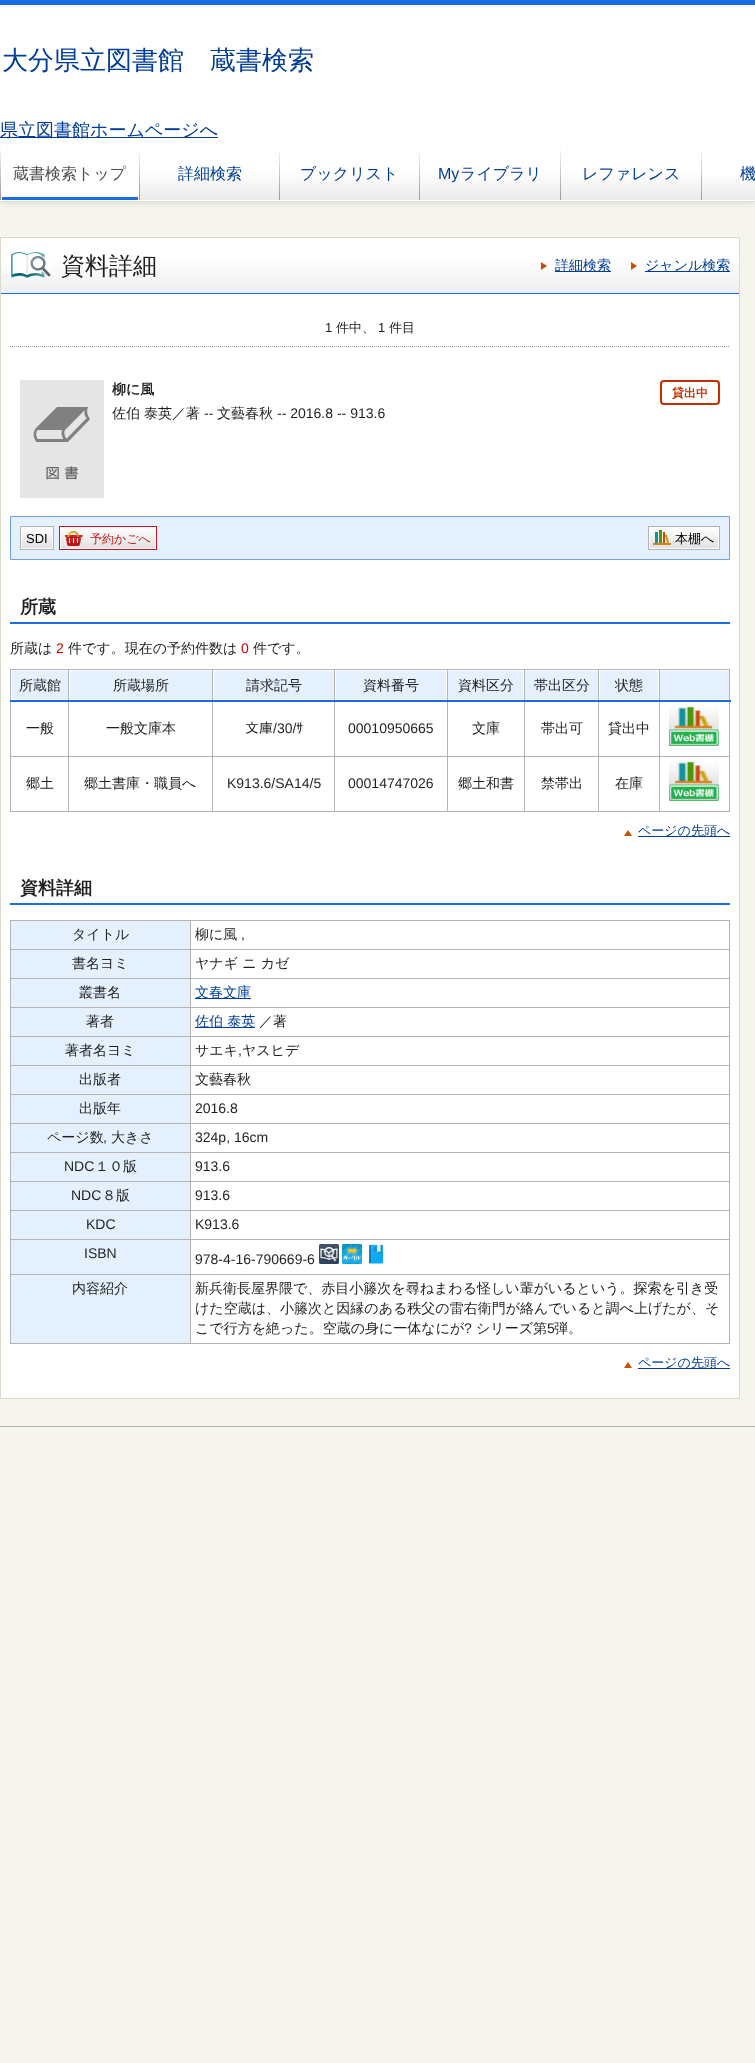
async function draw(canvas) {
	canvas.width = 755;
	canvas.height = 2063;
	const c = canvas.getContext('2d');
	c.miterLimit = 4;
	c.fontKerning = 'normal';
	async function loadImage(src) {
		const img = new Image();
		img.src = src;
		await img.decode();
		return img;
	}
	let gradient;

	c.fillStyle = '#f5f4ed';
	c.fillRect(0, 0, 755, 2063);
	c.fillStyle = '#00000021';
	c.filter = 'blur(3.5px)';
	c.beginPath();
	c.rect(0, 0, 755, 202);
	c.fill();
	c.filter = 'none';
	for (const [x, y, w, h, color] of [
		[0, 5, 755, 196, '#fff'],
		[0, 0, 755, 5, '#1a6de6'],
		[0, 201, 755, 1, '#deddd8'],
	]) {
		c.fillStyle = color;
		c.fillRect(x, y, w, h);
	}
	c.font = '500 26px WenQuanYi Zen Hei';
	c.fillStyle = '#003d99';
	c.fillText('大分県立図書館　蔵書検索', 2, 69);
	c.fillRect(0, 137, 218, 1);
	c.font = '500 18px WenQuanYi Zen Hei';
	c.fillText('県立図書館ホームページへ', 0, 136);
	gradient = c.createLinearGradient(492, 200, 492, 144);
	gradient.addColorStop(0, '#999');
	gradient.addColorStop(0.55, '#cfcfcf');
	gradient.addColorStop(0.95, '#fff');
	gradient.addColorStop(1, '#fff');
	c.fillStyle = gradient;
	c.fillRect(0, 148, 702, 52);
	c.fillStyle = '#fff';
	c.fillRect(1, 148, 138, 49);
	c.fillStyle = '#1a6de6';
	c.fillRect(1, 197, 138, 3);
	c.font = '500 16px WenQuanYi Zen Hei';
	c.fillStyle = '#4c4c4c';
	c.fillText('蔵書検索トップ', 13, 179);
	c.fillStyle = '#fff';
	c.fillRect(1, 197, 1, 3);
	c.fillRect(138, 197, 1, 3);
	gradient = c.createLinearGradient(210, 200, 210, 144);
	gradient.addColorStop(0, '#ebeae9');
	gradient.addColorStop(0.5, '#fff');
	gradient.addColorStop(1, '#fff');
	c.fillStyle = gradient;
	c.fillRect(140, 148, 139, 52);
	c.fillStyle = '#003d99';
	c.fillText('詳細検索', 178, 179);
	gradient = c.createLinearGradient(350, 200, 350, 144);
	gradient.addColorStop(0, '#ebeae9');
	gradient.addColorStop(0.5, '#fff');
	gradient.addColorStop(1, '#fff');
	c.fillStyle = gradient;
	c.fillRect(280, 148, 139, 52);
	c.fillStyle = '#003d99';
	c.fillText('ブックリスト', 300, 179);
	gradient = c.createLinearGradient(490, 200, 490, 144);
	gradient.addColorStop(0, '#ebeae9');
	gradient.addColorStop(0.5, '#fff');
	gradient.addColorStop(1, '#fff');
	c.fillStyle = gradient;
	c.fillRect(420, 148, 140, 52);
	c.font = '16px Liberation Sans';
	c.fillStyle = '#003d99';
	c.fillText('My', 438, 179);
	c.font = '500 16px WenQuanYi Zen Hei';
	c.fillText('ライブラリ', 460, 179);
	gradient = c.createLinearGradient(631, 200, 631, 144);
	gradient.addColorStop(0, '#ebeae9');
	gradient.addColorStop(0.5, '#fff');
	gradient.addColorStop(1, '#fff');
	c.fillStyle = gradient;
	c.fillRect(561, 148, 140, 52);
	c.fillStyle = '#003d99';
	c.fillText('レファレンス', 582, 179);
	gradient = c.createLinearGradient(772, 200, 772, 144);
	gradient.addColorStop(0, '#ebeae9');
	gradient.addColorStop(0.5, '#fff');
	gradient.addColorStop(1, '#fff');
	c.fillStyle = gradient;
	c.fillRect(702, 175, 53, 25);
	c.fillStyle = '#003d99';
	c.fillText('機', 740, 179);
	c.fillStyle = '#fff';
	c.fillRect(1, 294, 738, 1104);
	c.strokeStyle = '#dbdacb';
	c.strokeRect(0.5, 237.5, 739, 1161);
	gradient = c.createLinearGradient(370, 293, 370, 238);
	gradient.addColorStop(0, '#ebebeb');
	gradient.addColorStop(0, '#efefef');
	gradient.addColorStop(0.62, '#fff');
	gradient.addColorStop(1, '#fff');
	c.fillStyle = gradient;
	c.fillRect(1, 238, 738, 55);
	c.fillStyle = '#1a6de6';
	c.fillRect(1, 293, 738, 1);
	c.drawImage(await loadImage('img1.png'), 11, 252, 40, 26);
	c.font = '500 24px WenQuanYi Zen Hei';
	c.fillStyle = '#1f1f1f';
	c.fillText('資料詳細', 61, 274);
	c.fillStyle = '#cc4e00';
	c.beginPath();
	c.moveTo(541, 270);
	c.lineTo(541, 262);
	c.lineTo(547, 266);
	c.closePath();
	c.fill();
	c.fillStyle = '#003d99';
	c.fillRect(555, 271, 56, 1);
	c.font = '500 14px WenQuanYi Zen Hei';
	c.fillText('詳細検索', 555, 270);
	c.fillStyle = '#cc4e00';
	c.beginPath();
	c.moveTo(631, 270);
	c.lineTo(631, 262);
	c.lineTo(637, 266);
	c.closePath();
	c.fill();
	c.fillStyle = '#003d99';
	c.fillRect(645, 271, 85, 1);
	c.fillText('ジャンル検索', 645, 270);
	c.beginPath();
	c.moveTo(10, 346.5);
	c.lineTo(730, 346.5);
	c.strokeStyle = '#9b9b9b';
	c.setLineDash([1, 1]);
	c.stroke();
	c.font = '13px Liberation Sans';
	c.fillStyle = '#1f1f1f';
	c.fillText('1', 325, 332);
	c.font = '500 13px WenQuanYi Zen Hei';
	c.fillText('件中、', 336, 332);
	c.font = '13px Liberation Sans';
	c.fillText('1', 378, 332);
	c.font = '500 13px WenQuanYi Zen Hei';
	c.fillText('件目', 389, 332);
	c.strokeStyle = '#e5e5e5';
	c.setLineDash([]);
	c.strokeRect(20.5, 380.5, 83, 117);
	c.drawImage(await loadImage('img2.png'), 21, 381, 82, 116);
	c.font = 'bold 14px WenQuanYi Zen Hei';
	c.fillText('柳に風', 112, 394);
	c.beginPath();
	c.roundRect(661, 381, 58, 23, 3);
	c.strokeStyle = '#c52e00';
	c.lineWidth = 2;
	c.stroke();
	c.font = 'bold 12px WenQuanYi Zen Hei';
	c.fillStyle = '#c52e00';
	c.fillText('貸出中', 672, 397);
	c.font = '500 14px WenQuanYi Zen Hei';
	c.fillStyle = '#1f1f1f';
	c.fillText('佐伯', 112, 418);
	c.fillText('泰英／著', 144, 418);
	c.font = '14px Liberation Sans';
	c.fillText('--', 204, 418);
	c.font = '500 14px WenQuanYi Zen Hei';
	c.fillText('文藝春秋', 217, 418);
	c.font = '14px Liberation Sans';
	c.fillText('-- 2016.8 -- 913.6', 277, 418);
	c.fillStyle = '#e5f0ff';
	c.beginPath();
	c.rect(10.5, 516.5, 719, 43);
	c.fill();
	c.strokeStyle = '#73a1e5';
	c.lineWidth = 1;
	c.stroke();
	gradient = c.createLinearGradient(37, 549, 37, 527);
	gradient.addColorStop(0, '#e0e0e0');
	gradient.addColorStop(1, '#fff');
	c.fillStyle = gradient;
	c.fillRect(22, 528, 30, 20);
	c.strokeStyle = '#fbfbfb';
	c.strokeRect(21.5, 527.5, 31, 21);
	c.strokeStyle = '#b3b3b3';
	c.strokeRect(20.5, 526.5, 33, 23);
	c.font = '13px Liberation Sans';
	c.fillStyle = '#000';
	c.fillText('SDI', 26, 543);
	gradient = c.createLinearGradient(108, 549, 108, 527);
	gradient.addColorStop(0, '#e0e0e0');
	gradient.addColorStop(1, '#fff');
	c.fillStyle = gradient;
	c.fillRect(61, 528, 94, 20);
	c.strokeStyle = '#fbfbfb';
	c.strokeRect(60.5, 527.5, 95, 21);
	c.strokeStyle = '#c5181c';
	c.strokeRect(59.5, 526.5, 97, 23);
	c.drawImage(await loadImage('img3.png'), 64, 530, 19, 16);
	c.font = '500 12px WenQuanYi Zen Hei';
	c.fillStyle = '#c5181c';
	c.fillText('予約かごへ', 90, 543);
	gradient = c.createLinearGradient(684, 549, 684, 527);
	gradient.addColorStop(0, '#e0e0e0');
	gradient.addColorStop(1, '#fff');
	c.fillStyle = gradient;
	c.fillRect(650, 528, 68, 20);
	c.strokeStyle = '#fbfbfb';
	c.strokeRect(649.5, 527.5, 69, 21);
	c.strokeStyle = '#b3b3b3';
	c.strokeRect(648.5, 526.5, 71, 23);
	c.drawImage(await loadImage('img4.png'), 653, 530, 18, 15);
	c.font = '500 13px WenQuanYi Zen Hei';
	c.fillStyle = '#000';
	c.fillText('本棚へ', 675, 543);
	c.fillStyle = '#1a6de6';
	c.fillRect(10, 622, 720, 2);
	c.font = 'bold 18px WenQuanYi Zen Hei';
	c.fillStyle = '#1f1f1f';
	c.fillText('所蔵', 20, 613);
	c.font = '500 14px WenQuanYi Zen Hei';
	c.fillText('所蔵は', 10, 653);
	c.font = '14px Liberation Sans';
	c.fillStyle = '#cc0100';
	c.fillText('2', 56, 653);
	c.font = '500 14px WenQuanYi Zen Hei';
	c.fillStyle = '#1f1f1f';
	c.fillText('件です。現在の予約件数は', 68, 653);
	c.font = '14px Liberation Sans';
	c.fillStyle = '#cc0100';
	c.fillText('0', 241, 653);
	c.font = '500 14px WenQuanYi Zen Hei';
	c.fillStyle = '#1f1f1f';
	c.fillText('件です。', 253, 653);
	for (const [x, y, w, h, color] of [
		[10, 669, 720, 1, '#b3b3b3'],
		[729, 669, 1, 143, '#b3b3b3'],
		[10, 811, 720, 1, '#b3b3b3'],
		[10, 669, 1, 143, '#b3b3b3'],
		[660, 671, 69, 28, '#e5f0ff'],
		[659, 756, 71, 1, '#b3b3b3'],
		[659, 756, 1, 56, '#b3b3b3'],
		[598, 756, 62, 1, '#b3b3b3'],
		[598, 756, 1, 56, '#b3b3b3'],
		[524, 756, 75, 1, '#b3b3b3'],
		[524, 756, 1, 56, '#b3b3b3'],
		[447, 756, 78, 1, '#b3b3b3'],
		[447, 756, 1, 56, '#b3b3b3'],
		[334, 756, 114, 1, '#b3b3b3'],
		[334, 756, 1, 56, '#b3b3b3'],
		[212, 756, 123, 1, '#b3b3b3'],
		[212, 756, 1, 56, '#b3b3b3'],
		[68, 756, 145, 1, '#b3b3b3'],
		[68, 756, 1, 56, '#b3b3b3'],
		[10, 756, 59, 1, '#b3b3b3'],
		[68, 669, 1, 88, '#b3b3b3'],
		[212, 669, 1, 88, '#b3b3b3'],
		[334, 669, 1, 88, '#b3b3b3'],
		[447, 669, 1, 88, '#b3b3b3'],
		[524, 669, 1, 88, '#b3b3b3'],
		[598, 669, 1, 88, '#b3b3b3'],
		[659, 669, 1, 88, '#b3b3b3'],
		[10, 700, 721, 2, '#1a6de6'],
		[12, 671, 56, 28, '#e5f0ff'],
	]) {
		c.fillStyle = color;
		c.fillRect(x, y, w, h);
	}
	c.fillStyle = '#1f1f1f';
	c.fillText('所蔵館', 19, 690);
	c.fillStyle = '#e5f0ff';
	c.fillRect(70, 671, 142, 28);
	c.fillStyle = '#1f1f1f';
	c.fillText('所蔵場所', 113, 690);
	c.fillStyle = '#e5f0ff';
	c.fillRect(214, 671, 120, 28);
	c.fillStyle = '#1f1f1f';
	c.fillText('請求記号', 246, 690);
	c.fillStyle = '#e5f0ff';
	c.fillRect(336, 671, 110, 28);
	c.fillStyle = '#1f1f1f';
	c.fillText('資料番号', 363, 690);
	c.fillStyle = '#e5f0ff';
	c.fillRect(448, 671, 75, 28);
	c.fillStyle = '#1f1f1f';
	c.fillText('資料区分', 458, 690);
	c.fillStyle = '#e5f0ff';
	c.fillRect(525, 671, 73, 28);
	c.fillStyle = '#1f1f1f';
	c.fillText('帯出区分', 534, 690);
	c.fillStyle = '#e5f0ff';
	c.fillRect(600, 671, 58, 28);
	c.fillStyle = '#1f1f1f';
	for (const [text, x, y] of [
		['状態', 615, 690],
		['一般', 26, 733],
		['一般文庫本', 106, 733],
	]) {
		c.fillText(text, x, y);
	}
	c.font = '14px IPAPGothic';
	c.fillText('文庫', 245, 733);
	c.font = '14px Liberation Sans';
	c.fillText('/30/', 273, 733);
	c.font = '14px IPAPGothic';
	c.fillText('ｻ', 296, 733);
	c.font = '14px Liberation Sans';
	c.fillText('00010950665', 348, 733);
	c.font = '500 14px WenQuanYi Zen Hei';
	for (const [text, x, y] of [
		['文庫', 472, 733],
		['帯出可', 541, 733],
		['貸出中', 608, 733],
	]) {
		c.fillText(text, x, y);
	}
	c.drawImage(await loadImage('img5.png'), 669, 706, 50, 40);
	c.fillText('郷土', 26, 788);
	c.fillText('郷土書庫・職員へ', 84, 788);
	c.font = '14px Liberation Sans';
	c.fillText('K913.6/SA14/5', 227, 788);
	c.fillText('00014747026', 348, 788);
	c.font = '500 14px WenQuanYi Zen Hei';
	for (const [text, x, y] of [
		['郷土和書', 458, 788],
		['禁帯出', 541, 788],
		['在庫', 615, 788],
	]) {
		c.fillText(text, x, y);
	}
	c.drawImage(await loadImage('img5.png'), 669, 761, 50, 40);
	c.fillStyle = '#cc4e00';
	c.beginPath();
	c.moveTo(632, 836);
	c.lineTo(624, 836);
	c.lineTo(628, 830);
	c.closePath();
	c.fill();
	c.fillStyle = '#003d99';
	c.fillRect(638, 836, 92, 1);
	c.font = '500 13px WenQuanYi Zen Hei';
	c.fillText('ページの先頭へ', 638, 835);
	c.fillStyle = '#1a6de6';
	c.fillRect(10, 903, 720, 2);
	c.font = 'bold 18px WenQuanYi Zen Hei';
	c.fillStyle = '#1f1f1f';
	c.fillText('資料詳細', 20, 894);
	for (const [x, y, w, h, color] of [
		[10, 920, 720, 1, '#b3b3b3'],
		[729, 920, 1, 424, '#b3b3b3'],
		[10, 1343, 720, 1, '#b3b3b3'],
		[10, 920, 1, 424, '#b3b3b3'],
		[11, 921, 179, 28, '#e5f0ff'],
	]) {
		c.fillStyle = color;
		c.fillRect(x, y, w, h);
	}
	c.font = '500 14px WenQuanYi Zen Hei';
	c.fillStyle = '#1f1f1f';
	c.fillText('タイトル', 72, 939);
	for (const [x, y, w, h, color] of [
		[190, 949, 540, 1, '#b3b3b3'],
		[190, 978, 540, 1, '#b3b3b3'],
		[190, 1007, 540, 1, '#b3b3b3'],
		[190, 1036, 540, 1, '#b3b3b3'],
		[190, 1065, 540, 1, '#b3b3b3'],
		[190, 1094, 540, 1, '#b3b3b3'],
		[190, 1123, 540, 1, '#b3b3b3'],
		[190, 1152, 540, 1, '#b3b3b3'],
		[190, 1181, 540, 1, '#b3b3b3'],
		[190, 1210, 540, 1, '#b3b3b3'],
		[190, 1239, 540, 1, '#b3b3b3'],
		[190, 1274, 540, 1, '#b3b3b3'],
		[190, 1274, 1, 70, '#b3b3b3'],
		[10, 1274, 181, 1, '#b3b3b3'],
		[190, 1239, 1, 36, '#b3b3b3'],
		[10, 1239, 181, 1, '#b3b3b3'],
		[190, 1210, 1, 30, '#b3b3b3'],
		[10, 1210, 181, 1, '#b3b3b3'],
		[190, 1181, 1, 30, '#b3b3b3'],
		[10, 1181, 181, 1, '#b3b3b3'],
		[190, 1152, 1, 30, '#b3b3b3'],
		[10, 1152, 181, 1, '#b3b3b3'],
		[190, 1123, 1, 30, '#b3b3b3'],
		[10, 1123, 181, 1, '#b3b3b3'],
		[190, 1094, 1, 30, '#b3b3b3'],
		[10, 1094, 181, 1, '#b3b3b3'],
		[190, 1065, 1, 30, '#b3b3b3'],
		[10, 1065, 181, 1, '#b3b3b3'],
		[190, 1036, 1, 30, '#b3b3b3'],
		[10, 1036, 181, 1, '#b3b3b3'],
		[190, 1007, 1, 30, '#b3b3b3'],
		[10, 1007, 181, 1, '#b3b3b3'],
		[190, 978, 1, 30, '#b3b3b3'],
		[10, 978, 181, 1, '#b3b3b3'],
		[190, 949, 1, 30, '#b3b3b3'],
		[10, 949, 181, 1, '#b3b3b3'],
		[190, 920, 1, 30, '#b3b3b3'],
	]) {
		c.fillStyle = color;
		c.fillRect(x, y, w, h);
	}
	c.fillStyle = '#1f1f1f';
	c.fillText('柳に風', 195, 939);
	c.font = '14px Liberation Sans';
	c.fillText(',', 241, 939);
	c.fillStyle = '#e5f0ff';
	c.fillRect(11, 950, 179, 28);
	c.font = '500 14px WenQuanYi Zen Hei';
	c.fillStyle = '#1f1f1f';
	c.fillText('書名ヨミ', 72, 968);
	c.fillText('ヤナギ ニ カゼ', 195, 968);
	c.fillStyle = '#e5f0ff';
	c.fillRect(11, 979, 179, 28);
	c.fillStyle = '#1f1f1f';
	c.fillText('叢書名', 79, 997);
	c.fillStyle = '#003d99';
	c.fillRect(195, 998, 56, 1);
	c.fillText('文春文庫', 195, 997);
	c.fillStyle = '#e5f0ff';
	c.fillRect(11, 1008, 179, 28);
	c.fillStyle = '#1f1f1f';
	c.fillText('著者', 86, 1026);
	c.fillStyle = '#003d99';
	c.fillRect(195, 1027, 60, 1);
	c.fillText('佐伯 泰英', 195, 1026);
	c.fillStyle = '#1f1f1f';
	c.fillText('／著', 259, 1026);
	c.fillStyle = '#e5f0ff';
	c.fillRect(11, 1037, 179, 28);
	c.fillStyle = '#1f1f1f';
	c.fillText('著者名ヨミ', 65, 1055);
	c.fillText('サエキ', 195, 1055);
	c.font = '14px Liberation Sans';
	c.fillText(',', 238, 1055);
	c.font = '500 14px WenQuanYi Zen Hei';
	c.fillText('ヤスヒデ', 242, 1055);
	c.fillStyle = '#e5f0ff';
	c.fillRect(11, 1066, 179, 28);
	c.fillStyle = '#1f1f1f';
	c.fillText('出版者', 79, 1084);
	c.fillText('文藝春秋', 195, 1084);
	c.fillStyle = '#e5f0ff';
	c.fillRect(11, 1095, 179, 28);
	c.fillStyle = '#1f1f1f';
	c.fillText('出版年', 79, 1113);
	c.font = '14px Liberation Sans';
	c.fillText('2016.8', 195, 1113);
	c.fillStyle = '#e5f0ff';
	c.fillRect(11, 1124, 179, 28);
	c.font = '500 14px WenQuanYi Zen Hei';
	c.fillStyle = '#1f1f1f';
	c.fillText('ページ数', 47, 1142);
	c.font = '14px Liberation Sans';
	c.fillText(',', 103, 1142);
	c.font = '500 14px WenQuanYi Zen Hei';
	c.fillText('大きさ', 111, 1142);
	c.font = '14px Liberation Sans';
	c.fillText('324p, 16cm', 195, 1142);
	c.fillStyle = '#e5f0ff';
	c.fillRect(11, 1153, 179, 28);
	c.fillStyle = '#1f1f1f';
	c.fillText('NDC', 64, 1171);
	c.font = '500 14px WenQuanYi Zen Hei';
	c.fillText('１０版', 95, 1171);
	c.font = '14px Liberation Sans';
	c.fillText('913.6', 195, 1171);
	c.fillStyle = '#e5f0ff';
	c.fillRect(11, 1182, 179, 28);
	c.fillStyle = '#1f1f1f';
	c.fillText('NDC', 71, 1200);
	c.font = '500 14px WenQuanYi Zen Hei';
	c.fillText('８版', 102, 1200);
	c.font = '14px Liberation Sans';
	c.fillText('913.6', 195, 1200);
	c.fillStyle = '#e5f0ff';
	c.fillRect(11, 1211, 179, 28);
	c.fillStyle = '#1f1f1f';
	c.fillText('KDC', 86, 1229);
	c.fillText('K913.6', 195, 1229);
	c.fillStyle = '#e5f0ff';
	c.fillRect(11, 1240, 179, 34);
	c.fillStyle = '#1f1f1f';
	c.fillText('ISBN', 84, 1258);
	c.fillText('978-4-16-790669-6', 195, 1264);
	c.drawImage(await loadImage('img6.png'), 319, 1244, 20, 20);
	c.drawImage(await loadImage('img7.png'), 342, 1244, 20, 20);
	c.drawImage(await loadImage('img8.png'), 369, 1244, 14, 20);
	c.fillStyle = '#e5f0ff';
	c.fillRect(11, 1275, 179, 68);
	c.font = '500 14px WenQuanYi Zen Hei';
	c.fillStyle = '#1f1f1f';
	for (const [text, x, y] of [
		['内容紹介', 72, 1293],
		['新兵衛長屋界隈で、赤目小籐次を尋ねまわる怪しい輩がいるという。探索を引き受', 195, 1293],
		['けた空蔵は、小籐次と因縁のある秩父の雷右衛門が絡んでいると調べ上げたが、そ', 195, 1313],
		['こで行方を絶った。空蔵の身に一体なにが', 195, 1333],
	]) {
		c.fillText(text, x, y);
	}
	c.font = '14px Liberation Sans';
	c.fillText('?', 464, 1333);
	c.font = '500 14px WenQuanYi Zen Hei';
	c.fillText('シリーズ第', 476, 1333);
	c.font = '14px Liberation Sans';
	c.fillText('5', 547, 1333);
	c.font = '500 14px WenQuanYi Zen Hei';
	c.fillText('弾。', 554, 1333);
	c.fillStyle = '#cc4e00';
	c.beginPath();
	c.moveTo(632, 1368);
	c.lineTo(624, 1368);
	c.lineTo(628, 1362);
	c.closePath();
	c.fill();
	c.fillStyle = '#003d99';
	c.fillRect(638, 1368, 92, 1);
	c.font = '500 13px WenQuanYi Zen Hei';
	c.fillText('ページの先頭へ', 638, 1367);
	c.fillStyle = '#b3b3b3';
	c.fillRect(0, 1426, 755, 1);
}

draw(document.querySelector('canvas'));
